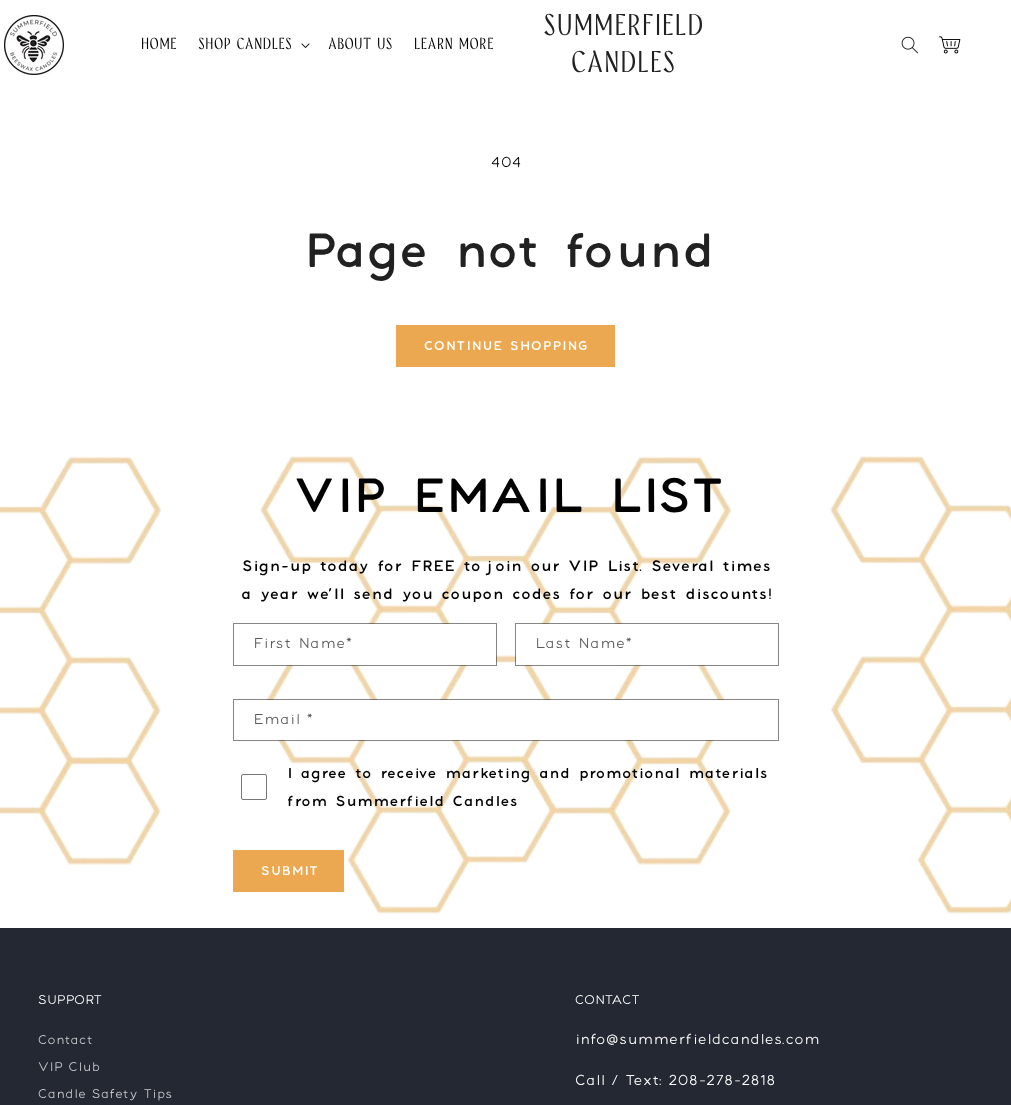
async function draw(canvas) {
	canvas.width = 1011;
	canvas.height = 1105;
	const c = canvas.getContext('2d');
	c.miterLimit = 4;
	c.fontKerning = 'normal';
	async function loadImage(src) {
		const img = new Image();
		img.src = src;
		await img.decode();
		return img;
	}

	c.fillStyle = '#fff';
	c.fillRect(0, 0, 1011, 1105);
	c.drawImage(await loadImage('img1.png'), 4, 15, 60, 60);
	c.letterSpacing = '0.5px';
	c.font = '16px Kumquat';
	c.fillStyle = '#000';
	c.fillText('HOME', 141, 49);
	c.fillText('SHOP CANDLES', 198, 49);
	c.drawImage(await loadImage('img2.png'), 301, 43, 9, 5);
	c.fillText('ABOUT US', 328, 49);
	c.fillText('LEARN MORE', 414, 49);
	c.letterSpacing = '1px';
	c.font = '30px Kumquat';
	c.fillStyle = '#212121';
	c.fillText('SUMMERFIELD', 543, 35);
	c.fillText('CANDLES', 571, 72);
	c.drawImage(await loadImage('img3.png'), 901, 36, 17, 18);
	c.drawImage(await loadImage('img4.png'), 939, 36, 22, 18);
	c.letterSpacing = '0.55px';
	c.font = '14.4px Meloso';
	c.fillStyle = '#000';
	c.fillText('404', 490, 167);
	c.letterSpacing = '0px';
	c.font = 'bold 48px Meloso';
	c.fillStyle = '#212121';
	c.fillText('Page not found', 299, 267);
	c.fillStyle = '#eba851';
	c.fillRect(396, 325, 219, 42);
	c.letterSpacing = '0.9px';
	c.font = 'bold 12.6px Meloso';
	c.fillStyle = '#fff';
	c.fillText('CONTINUE SHOPPING', 423, 350);
	c.drawImage(await loadImage('img5.png'), 0, 456, 1011, 458);
	c.letterSpacing = '0px';
	c.font = 'bold 48px Meloso';
	c.fillStyle = '#000';
	c.fillText('VIP EMAIL LIST', 290, 512);
	c.letterSpacing = '0.55px';
	c.font = 'bold 15px Meloso';
	c.fillText('Sign-up today for FREE to join our VIP List. Several times', 241, 571);
	c.fillText('a year we’ll send you coupon codes for our best discounts!', 240, 599);
	c.fillStyle = '#fff';
	c.fillRect(285, 624, 211, 41);
	c.strokeStyle = '#2121218c';
	c.strokeRect(233.5, 623.5, 263, 42);
	c.letterSpacing = '0.9px';
	c.font = '14.4px Meloso';
	c.fillStyle = '#595959';
	c.fillText('First Name*', 252, 648);
	c.fillStyle = '#fff';
	c.fillRect(516, 624, 190, 41);
	c.strokeRect(515.5, 623.5, 263, 42);
	c.fillStyle = '#595959';
	c.fillText('Last Name*', 534, 648);
	c.fillStyle = '#fff';
	c.fillRect(260, 700, 471, 40);
	c.strokeRect(233.5, 699.5, 545, 41);
	c.fillStyle = '#595959';
	c.fillText('Email *', 252, 724);
	c.beginPath();
	c.roundRect(241.5, 774.5, 25, 25, 1.5);
	c.strokeStyle = '#767676';
	c.stroke();
	c.letterSpacing = '0.55px';
	c.font = 'bold 14.4px Meloso';
	c.fillStyle = '#000';
	c.fillText('I agree to receive marketing and promotional materials', 286, 778);
	c.fillText('from Summerfield Candles', 286, 806);
	c.fillStyle = '#eba851';
	c.fillRect(233, 850, 111, 42);
	c.letterSpacing = '0.9px';
	c.font = 'bold 12.6px Meloso';
	c.fillStyle = '#fff';
	c.fillText('SUBMIT', 260, 875);
	c.fillStyle = '#242833';
	c.fillRect(0, 928, 1011, 177);
	c.letterSpacing = '0px';
	c.font = '12.6px Meloso';
	c.fillStyle = '#fff';
	c.fillText('SUPPORT', 37, 1004);
	c.letterSpacing = '0.55px';
	c.fillStyle = '#c8c9cc';
	for (const [text, x, y] of [
		['Contact', 37, 1044],
		['VIP Club', 37, 1071],
		['Candle Safety Tips', 37, 1098],
	]) {
		c.fillText(text, x, y);
	}
	c.letterSpacing = '0px';
	c.fillStyle = '#fff';
	c.fillText('CONTACT', 574, 1004);
	c.letterSpacing = '0.55px';
	c.font = '14.4px Meloso';
	c.fillText('info@summerfieldcandles.com', 574, 1044);
	c.fillText('Call / Text: 208-278-2818', 574, 1085);
}

draw(document.querySelector('canvas'));
